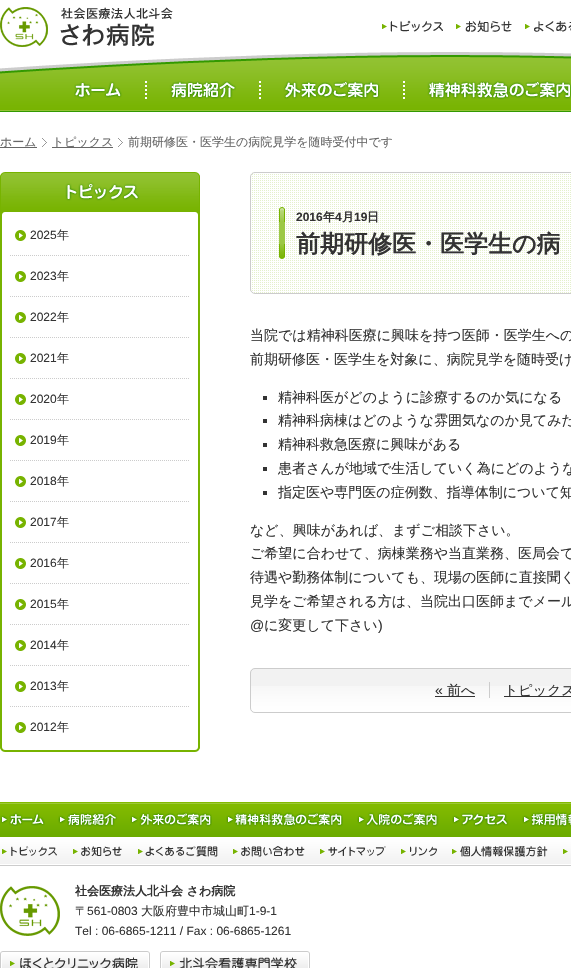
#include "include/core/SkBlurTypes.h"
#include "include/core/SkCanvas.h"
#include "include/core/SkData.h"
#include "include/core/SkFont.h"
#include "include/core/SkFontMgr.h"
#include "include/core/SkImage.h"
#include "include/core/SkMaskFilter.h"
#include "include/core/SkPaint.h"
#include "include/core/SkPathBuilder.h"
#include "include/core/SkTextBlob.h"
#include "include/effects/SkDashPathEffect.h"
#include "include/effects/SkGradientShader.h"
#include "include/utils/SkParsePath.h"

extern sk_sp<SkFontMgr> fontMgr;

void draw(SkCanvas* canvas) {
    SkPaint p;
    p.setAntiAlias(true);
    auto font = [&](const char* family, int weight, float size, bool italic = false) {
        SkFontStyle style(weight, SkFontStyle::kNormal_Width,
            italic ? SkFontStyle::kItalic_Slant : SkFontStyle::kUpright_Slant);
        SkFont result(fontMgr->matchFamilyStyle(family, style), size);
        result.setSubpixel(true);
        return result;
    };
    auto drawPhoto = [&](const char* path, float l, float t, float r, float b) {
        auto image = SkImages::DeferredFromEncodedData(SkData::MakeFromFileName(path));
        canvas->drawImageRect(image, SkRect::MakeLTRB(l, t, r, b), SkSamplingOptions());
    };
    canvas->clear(0xFFFFFFFF);
    drawPhoto("media/1.png", 0, 77, 571, 112);
    drawPhoto("media/2.png", 0, 52, 571, 77);
    drawPhoto("media/3.png", 0, 7, 173, 47);
    drawPhoto("media/4.png", 382, 20, 443, 32);
    drawPhoto("media/5.png", 456, 20, 512, 32);
    drawPhoto("media/6.png", 525, 21, 571, 32);
    drawPhoto("media/7.png", 74, 81, 146, 99);
    drawPhoto("media/8.png", 146, 81, 260, 99);
    drawPhoto("media/9.png", 260, 80, 404, 99);
    drawPhoto("media/10.png", 404, 80, 571, 100);
    p.setColor(0xFF666666);
    canvas->drawRect(SkRect::MakeLTRB(0, 147, 37, 148), p);
    auto font1 = font("WenQuanYi Zen Hei", 500, 12);
    canvas->drawString("ホーム", 0, 146, font1, p);
    drawPhoto("media/11.png", 42, 138, 47, 147);
    canvas->drawRect(SkRect::MakeLTRB(52, 147, 113, 148), p);
    canvas->drawString("トピックス", 52, 146, font1, p);
    drawPhoto("media/11.png", 118, 138, 123, 147);
    canvas->drawString("前期研修医・医学生の病院見学を随時受付中です", 128, 146, font1, p);
    drawPhoto("media/12.png", 0, 215, 200, 747);
    drawPhoto("media/13.png", 0, 747, 200, 752);
    drawPhoto("media/14.png", 0, 172, 200, 215);
    p.setStyle(SkPaint::kStroke_Style);
    p.setStrokeWidth(1);
    p.setColor(0xFFCCCCCC);
    p.setPathEffect(SkDashPathEffect::Make({{1, 1}}, 0));
    canvas->drawPath(SkPathBuilder().moveTo(10, 255.5f).lineTo(190, 255.5f).detach(), p);
    p.setPathEffect(nullptr);
    drawPhoto("media/15.png", 15, 230, 26, 241);
    auto font2 = font("Liberation Sans", 400, 12);
    p.setStyle(SkPaint::kFill_Style);
    p.setColor(0xFF333333);
    canvas->drawString("2025", 30, 239, font2, p);
    canvas->drawString("年", 57, 239, font1, p);
    p.setStyle(SkPaint::kStroke_Style);
    p.setColor(0xFFCCCCCC);
    p.setPathEffect(SkDashPathEffect::Make({{1, 1}}, 0));
    canvas->drawPath(SkPathBuilder().moveTo(10, 296.5f).lineTo(190, 296.5f).detach(), p);
    p.setPathEffect(nullptr);
    drawPhoto("media/15.png", 15, 271, 26, 282);
    p.setStyle(SkPaint::kFill_Style);
    p.setColor(0xFF333333);
    canvas->drawString("2023", 30, 280, font2, p);
    canvas->drawString("年", 57, 280, font1, p);
    p.setStyle(SkPaint::kStroke_Style);
    p.setColor(0xFFCCCCCC);
    p.setPathEffect(SkDashPathEffect::Make({{1, 1}}, 0));
    canvas->drawPath(SkPathBuilder().moveTo(10, 337.5f).lineTo(190, 337.5f).detach(), p);
    p.setPathEffect(nullptr);
    drawPhoto("media/15.png", 15, 312, 26, 323);
    p.setStyle(SkPaint::kFill_Style);
    p.setColor(0xFF333333);
    canvas->drawString("2022", 30, 321, font2, p);
    canvas->drawString("年", 57, 321, font1, p);
    p.setStyle(SkPaint::kStroke_Style);
    p.setColor(0xFFCCCCCC);
    p.setPathEffect(SkDashPathEffect::Make({{1, 1}}, 0));
    canvas->drawPath(SkPathBuilder().moveTo(10, 378.5f).lineTo(190, 378.5f).detach(), p);
    p.setPathEffect(nullptr);
    drawPhoto("media/15.png", 15, 353, 26, 364);
    p.setStyle(SkPaint::kFill_Style);
    p.setColor(0xFF333333);
    canvas->drawString("2021", 30, 362, font2, p);
    canvas->drawString("年", 57, 362, font1, p);
    p.setStyle(SkPaint::kStroke_Style);
    p.setColor(0xFFCCCCCC);
    p.setPathEffect(SkDashPathEffect::Make({{1, 1}}, 0));
    canvas->drawPath(SkPathBuilder().moveTo(10, 419.5f).lineTo(190, 419.5f).detach(), p);
    p.setPathEffect(nullptr);
    drawPhoto("media/15.png", 15, 394, 26, 405);
    p.setStyle(SkPaint::kFill_Style);
    p.setColor(0xFF333333);
    canvas->drawString("2020", 30, 403, font2, p);
    canvas->drawString("年", 57, 403, font1, p);
    p.setStyle(SkPaint::kStroke_Style);
    p.setColor(0xFFCCCCCC);
    p.setPathEffect(SkDashPathEffect::Make({{1, 1}}, 0));
    canvas->drawPath(SkPathBuilder().moveTo(10, 460.5f).lineTo(190, 460.5f).detach(), p);
    p.setPathEffect(nullptr);
    drawPhoto("media/15.png", 15, 435, 26, 446);
    p.setStyle(SkPaint::kFill_Style);
    p.setColor(0xFF333333);
    canvas->drawString("2019", 30, 444, font2, p);
    canvas->drawString("年", 57, 444, font1, p);
    p.setStyle(SkPaint::kStroke_Style);
    p.setColor(0xFFCCCCCC);
    p.setPathEffect(SkDashPathEffect::Make({{1, 1}}, 0));
    canvas->drawPath(SkPathBuilder().moveTo(10, 501.5f).lineTo(190, 501.5f).detach(), p);
    p.setPathEffect(nullptr);
    drawPhoto("media/15.png", 15, 476, 26, 487);
    p.setStyle(SkPaint::kFill_Style);
    p.setColor(0xFF333333);
    canvas->drawString("2018", 30, 485, font2, p);
    canvas->drawString("年", 57, 485, font1, p);
    p.setStyle(SkPaint::kStroke_Style);
    p.setColor(0xFFCCCCCC);
    p.setPathEffect(SkDashPathEffect::Make({{1, 1}}, 0));
    canvas->drawPath(SkPathBuilder().moveTo(10, 542.5f).lineTo(190, 542.5f).detach(), p);
    p.setPathEffect(nullptr);
    drawPhoto("media/15.png", 15, 517, 26, 528);
    p.setStyle(SkPaint::kFill_Style);
    p.setColor(0xFF333333);
    canvas->drawString("2017", 30, 526, font2, p);
    canvas->drawString("年", 57, 526, font1, p);
    p.setStyle(SkPaint::kStroke_Style);
    p.setColor(0xFFCCCCCC);
    p.setPathEffect(SkDashPathEffect::Make({{1, 1}}, 0));
    canvas->drawPath(SkPathBuilder().moveTo(10, 583.5f).lineTo(190, 583.5f).detach(), p);
    p.setPathEffect(nullptr);
    drawPhoto("media/15.png", 15, 558, 26, 569);
    p.setStyle(SkPaint::kFill_Style);
    p.setColor(0xFF333333);
    canvas->drawString("2016", 30, 567, font2, p);
    canvas->drawString("年", 57, 567, font1, p);
    p.setStyle(SkPaint::kStroke_Style);
    p.setColor(0xFFCCCCCC);
    p.setPathEffect(SkDashPathEffect::Make({{1, 1}}, 0));
    canvas->drawPath(SkPathBuilder().moveTo(10, 624.5f).lineTo(190, 624.5f).detach(), p);
    p.setPathEffect(nullptr);
    drawPhoto("media/15.png", 15, 599, 26, 610);
    p.setStyle(SkPaint::kFill_Style);
    p.setColor(0xFF333333);
    canvas->drawString("2015", 30, 608, font2, p);
    canvas->drawString("年", 57, 608, font1, p);
    p.setStyle(SkPaint::kStroke_Style);
    p.setColor(0xFFCCCCCC);
    p.setPathEffect(SkDashPathEffect::Make({{1, 1}}, 0));
    canvas->drawPath(SkPathBuilder().moveTo(10, 665.5f).lineTo(190, 665.5f).detach(), p);
    p.setPathEffect(nullptr);
    drawPhoto("media/15.png", 15, 640, 26, 651);
    p.setStyle(SkPaint::kFill_Style);
    p.setColor(0xFF333333);
    canvas->drawString("2014", 30, 649, font2, p);
    canvas->drawString("年", 57, 649, font1, p);
    p.setStyle(SkPaint::kStroke_Style);
    p.setColor(0xFFCCCCCC);
    p.setPathEffect(SkDashPathEffect::Make({{1, 1}}, 0));
    canvas->drawPath(SkPathBuilder().moveTo(10, 706.5f).lineTo(190, 706.5f).detach(), p);
    p.setPathEffect(nullptr);
    drawPhoto("media/15.png", 15, 681, 26, 692);
    p.setStyle(SkPaint::kFill_Style);
    p.setColor(0xFF333333);
    canvas->drawString("2013", 30, 690, font2, p);
    canvas->drawString("年", 57, 690, font1, p);
    drawPhoto("media/15.png", 15, 722, 26, 733);
    canvas->drawString("2012", 30, 731, font2, p);
    canvas->drawString("年", 57, 731, font1, p);
    drawPhoto("media/16.png", 250, 172, 571, 293);
    p.setStyle(SkPaint::kStroke_Style);
    p.setColor(0xFFCCCCCC);
    canvas->drawRoundRect(SkRect::MakeLTRB(250.5f, 172.5f, 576.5f, 293.5f), 4.5f, 4.5f, p);
    p.setStyle(SkPaint::kFill_Style);
    p.setColor(0xFF9CC846);
    canvas->drawRect(SkRect::MakeLTRB(279, 222, 285, 244), p);
    drawPhoto("media/17.png", 279, 207, 285, 222);
    drawPhoto("media/18.png", 279, 244, 285, 259);
    auto font3 = font("Liberation Sans", 700, 12);
    p.setColor(0xFF333333);
    canvas->drawString("2016", 296, 221, font3, p);
    auto font4 = font("WenQuanYi Zen Hei", 700, 12);
    canvas->drawString("年", 323, 221, font4, p);
    canvas->drawString("4", 335, 221, font3, p);
    canvas->drawString("月", 342, 221, font4, p);
    canvas->drawString("19", 354, 221, font3, p);
    canvas->drawString("日", 367, 221, font4, p);
    auto font5 = font("WenQuanYi Zen Hei", 700, 24);
    canvas->drawString("前期研修医・医学生の病", 296, 252, font5, p);
    auto font6 = font("WenQuanYi Zen Hei", 500, 14);
    canvas->drawString("当院では精神科医療に興味を持つ医師・医学生への", 250, 340, font6, p);
    canvas->drawString("前期研修医・医学生を対象に、病院見学を随時受け", 250, 364, font6, p);
    canvas->drawRect(SkRect::MakeLTRB(263, 396, 267, 400), p);
    canvas->drawString("精神科医がどのように診療するのか気になる", 278, 402, font6, p);
    canvas->drawRect(SkRect::MakeLTRB(263, 419, 267, 423), p);
    canvas->drawString("精神科病棟はどのような雰囲気なのか見てみた", 278, 425, font6, p);
    canvas->drawRect(SkRect::MakeLTRB(263, 443, 267, 447), p);
    canvas->drawString("精神科救急医療に興味がある", 278, 449, font6, p);
    canvas->drawRect(SkRect::MakeLTRB(263, 467, 267, 471), p);
    canvas->drawString("患者さんが地域で生活していく為にどのような", 278, 473, font6, p);
    canvas->drawRect(SkRect::MakeLTRB(263, 491, 267, 495), p);
    {
        const struct { const char* s; float x, y; } items[] = {
            {"指定医や専門医の症例数、指導体制について知", 278, 497},
            {"など、興味があれば、まずご相談下さい。", 250, 535},
            {"ご希望に合わせて、病棟業務や当直業務、医局会で", 250, 558},
            {"待遇や勤務体制についても、現場の医師に直接聞く", 250, 582},
            {"見学をご希望される方は、当院出口医師までメール", 250, 606},
        };
        for (auto [s, x, y] : items) {
            canvas->drawString(s, x, y, font6, p);
        }
    }
    auto font7 = font("Liberation Sans", 400, 14);
    canvas->drawString("@", 250, 630, font7, p);
    canvas->drawString("に変更して下さい", 264, 630, font6, p);
    canvas->drawString(")", 378, 630, font7, p);
    p.setColor(0xFFF2F2F2);
    canvas->drawRoundRect(SkRect::MakeLTRB(250, 668, 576, 713), 5, 5, p);
    drawPhoto("media/19.png", 250, 686, 571, 712);
    p.setStyle(SkPaint::kStroke_Style);
    p.setColor(0xFFCCCCCC);
    canvas->drawRoundRect(SkRect::MakeLTRB(250.5f, 668.5f, 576.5f, 712.5f), 4.5f, 4.5f, p);
    p.setStyle(SkPaint::kFill_Style);
    p.setColor(0xFF333333);
    canvas->drawString("«", 435, 695, font7, p);
    canvas->drawRect(SkRect::MakeLTRB(435, 696, 475, 697), p);
    canvas->drawString("前へ", 447, 695, font6, p);
    canvas->drawRect(SkRect::MakeLTRB(504, 696, 571, 697), p);
    canvas->drawString("トピックス", 504, 695, font6, p);
    p.setColor(0xFFCCCCCC);
    canvas->drawRect(SkRect::MakeLTRB(489, 682, 490, 698), p);
    drawPhoto("media/20.png", 0, 802, 571, 866);
    drawPhoto("media/21.png", 0, 812, 45, 826);
    drawPhoto("media/22.png", 58, 812, 117, 827);
    drawPhoto("media/23.png", 130, 812, 212, 827);
    drawPhoto("media/24.png", 226, 812, 343, 827);
    drawPhoto("media/25.png", 357, 812, 439, 827);
    drawPhoto("media/26.png", 452, 813, 509, 827);
    drawPhoto("media/27.png", 522, 812, 571, 827);
    drawPhoto("media/28.png", 2, 846, 57, 856);
    drawPhoto("media/29.png", 73, 846, 122, 856);
    drawPhoto("media/30.png", 138, 846, 218, 857);
    drawPhoto("media/31.png", 233, 846, 305, 857);
    drawPhoto("media/32.png", 320, 846, 386, 856);
    drawPhoto("media/33.png", 401, 846, 437, 856);
    drawPhoto("media/34.png", 452, 846, 548, 857);
    drawPhoto("media/35.png", 563, 849, 568, 854);
    drawPhoto("media/36.png", 0, 886, 60, 936);
    p.setColor(0xFF333333);
    canvas->drawString("社会医療法人北斗会 さわ病院", 75, 895, font4, p);
    canvas->drawString("〒", 75, 915, font1, p);
    canvas->drawString("561-0803", 87, 915, font2, p);
    canvas->drawString("大阪府豊中市城山町", 141, 915, font1, p);
    canvas->drawString("1-9-1", 249, 915, font2, p);
    canvas->drawString("Tel : 06-6865-1211 / Fax : 06-6865-1261", 75, 935, font2, p);
    drawPhoto("media/37.png", 0, 951, 150, 968);
    drawPhoto("media/38.png", 160, 951, 310, 968);
}
